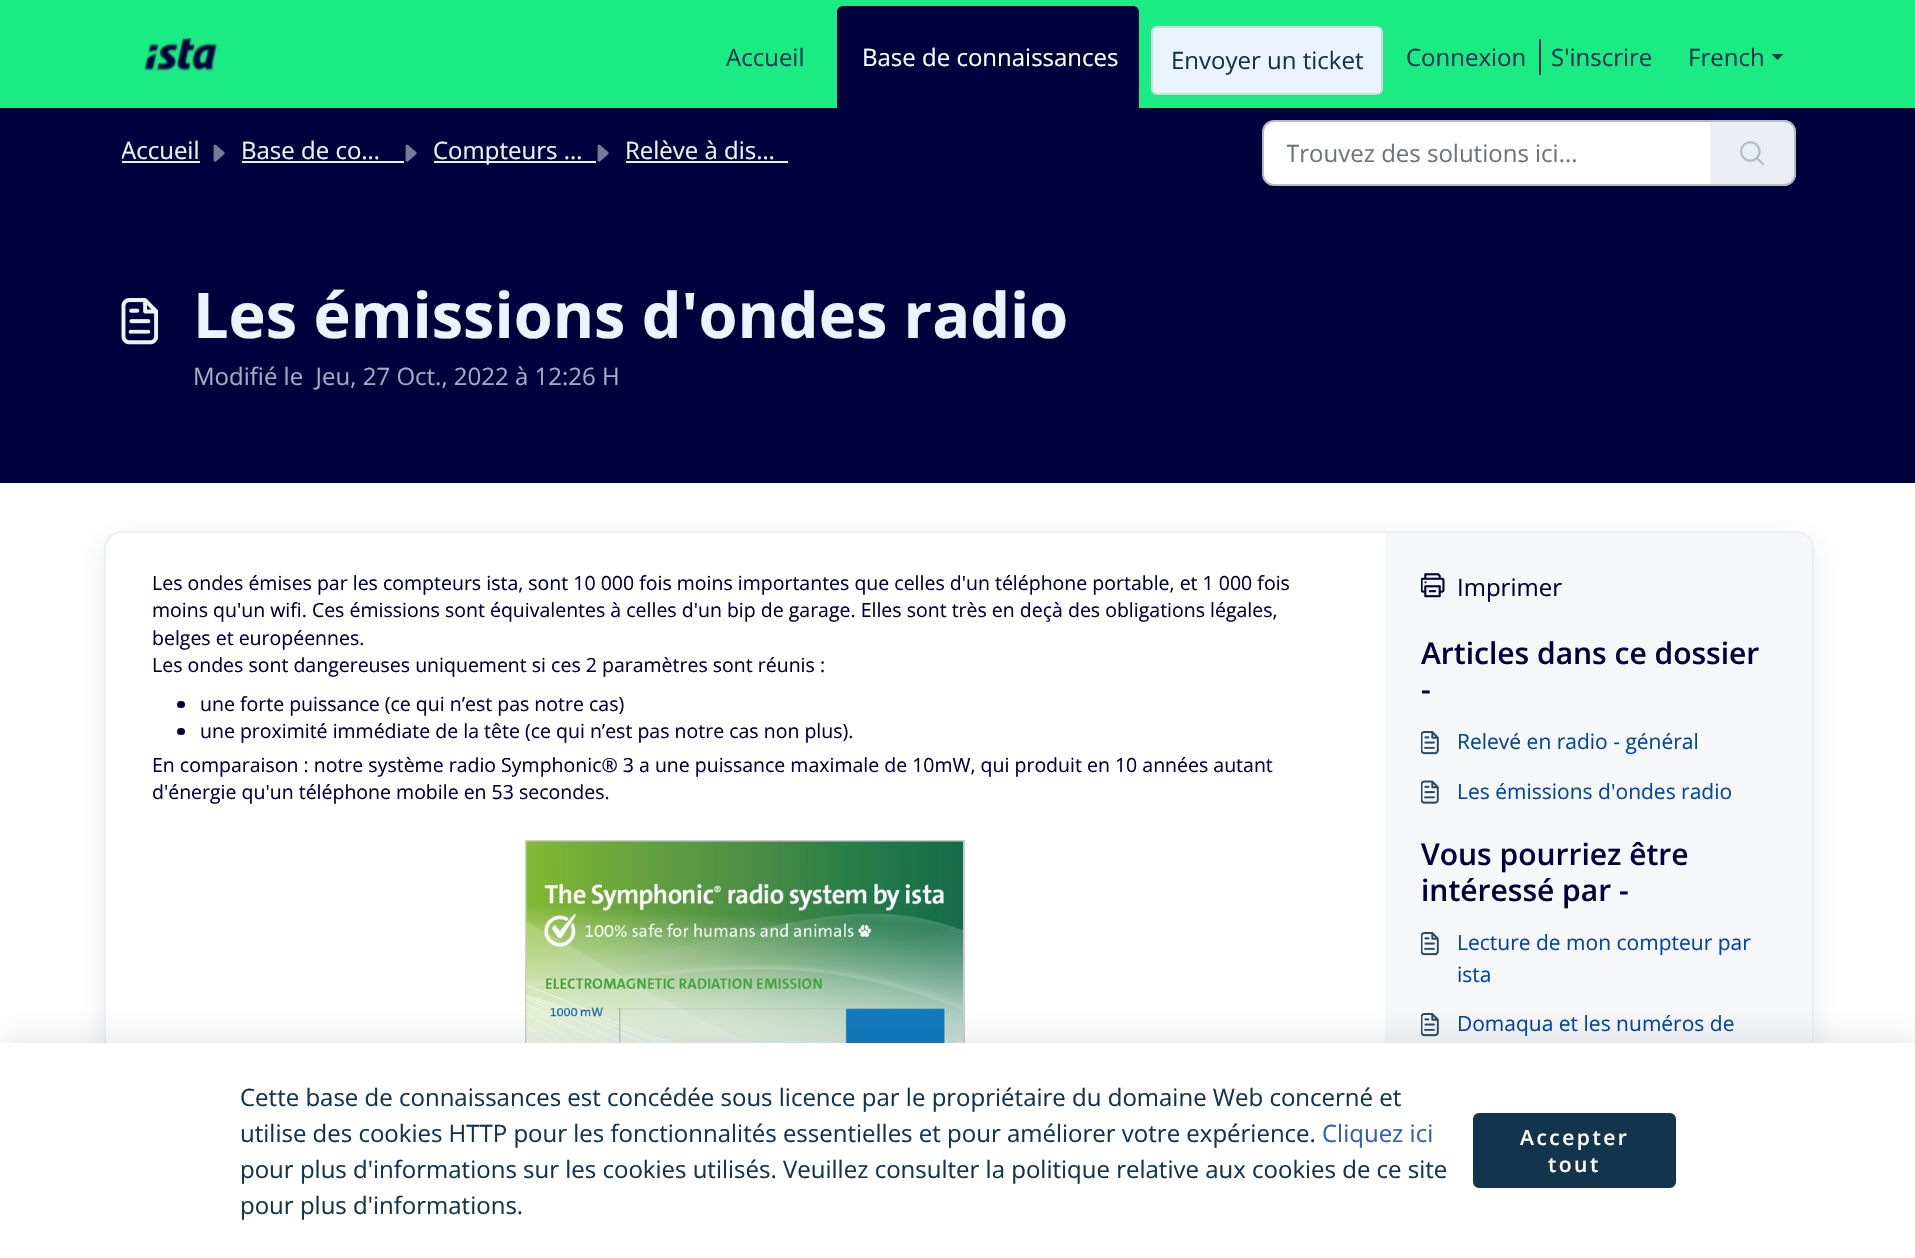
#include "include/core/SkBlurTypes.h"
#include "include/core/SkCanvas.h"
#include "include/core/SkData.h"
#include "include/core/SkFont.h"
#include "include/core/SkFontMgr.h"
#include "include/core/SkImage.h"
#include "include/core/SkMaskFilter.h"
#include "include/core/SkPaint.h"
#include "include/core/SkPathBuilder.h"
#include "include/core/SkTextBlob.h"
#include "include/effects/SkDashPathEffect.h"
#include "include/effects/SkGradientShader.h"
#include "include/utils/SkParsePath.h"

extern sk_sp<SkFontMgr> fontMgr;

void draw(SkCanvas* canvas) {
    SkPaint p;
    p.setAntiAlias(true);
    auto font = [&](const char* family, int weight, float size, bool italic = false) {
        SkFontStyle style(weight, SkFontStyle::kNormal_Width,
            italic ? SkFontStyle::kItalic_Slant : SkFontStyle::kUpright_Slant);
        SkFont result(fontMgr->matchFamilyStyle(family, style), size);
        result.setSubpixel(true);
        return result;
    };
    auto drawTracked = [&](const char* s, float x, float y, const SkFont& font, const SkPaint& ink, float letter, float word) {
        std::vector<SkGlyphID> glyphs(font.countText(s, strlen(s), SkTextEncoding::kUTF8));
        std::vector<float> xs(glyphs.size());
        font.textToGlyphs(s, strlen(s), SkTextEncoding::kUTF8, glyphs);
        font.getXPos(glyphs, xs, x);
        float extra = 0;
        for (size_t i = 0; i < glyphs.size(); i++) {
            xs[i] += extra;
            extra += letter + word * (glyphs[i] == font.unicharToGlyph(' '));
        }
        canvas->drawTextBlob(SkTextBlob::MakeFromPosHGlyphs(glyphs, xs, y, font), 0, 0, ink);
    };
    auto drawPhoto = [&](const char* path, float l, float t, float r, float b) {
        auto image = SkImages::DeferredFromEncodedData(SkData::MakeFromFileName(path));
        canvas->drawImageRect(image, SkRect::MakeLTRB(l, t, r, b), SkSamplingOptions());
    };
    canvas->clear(0xFFFFFFFF);
    p.setColor(0xFF1BEB83);
    canvas->drawRect(SkRect::MakeLTRB(0, 0, 1915, 108), p);
    drawPhoto("media/1.png", 144, 38, 218, 72);
    auto font1 = font("Open Sans", 400, 24);
    p.setColor(0xFF12344D);
    canvas->drawString("Accueil", 726, 66, font1, p);
    p.setColor(0xFF00003C);
    canvas->drawPath(SkPathBuilder().moveTo(843, 6).lineTo(1133, 6).cubicTo(1136.5f, 6, 1139, 8.5f, 1139, 12).lineTo(1139, 108).lineTo(837, 108).lineTo(837, 12).cubicTo(837, 8.5f, 839.5f, 6, 843, 6).close().detach(), p);
    p.setColor(0xFFFFFFFF);
    canvas->drawString("Base de connaissances", 862, 66, font1, p);
    p.setColor(0xFFEBF4FE);
    canvas->drawRoundRect(SkRect::MakeLTRB(1152, 27, 1382, 94), 5, 5, p);
    p.setStyle(SkPaint::kStroke_Style);
    p.setStrokeWidth(2);
    p.setColor(0xFFCFD7DF);
    canvas->drawRoundRect(SkRect::MakeLTRB(1152, 27, 1382, 94), 5, 5, p);
    p.setStyle(SkPaint::kFill_Style);
    p.setColor(0xFF12344D);
    canvas->drawString("Envoyer un ticket", 1171, 69, font1, p);
    canvas->drawString("Connexion", 1406, 66, font1, p);
    canvas->drawRect(SkRect::MakeLTRB(1539, 39, 1541, 75), p);
    canvas->drawString("S'inscrire", 1551, 66, font1, p);
    canvas->drawString("French", 1688, 66, font1, p);
    canvas->drawPath(SkPathBuilder().moveTo(1771.5f, 54).lineTo(1783.5f, 54).lineTo(1777.5f, 60).close().detach(), p);
    p.setColor(0xFF00003C);
    canvas->drawRect(SkRect::MakeLTRB(0, 108, 1915, 483), p);
    canvas->save();
    canvas->clipRect(SkRect::MakeLTRB(122, 132, 212, 174));
    p.setColor(0xFFEBF4FE);
    canvas->drawString("Accueil", 121, 159, font1, p);
    canvas->restore();
    canvas->drawRect(SkRect::MakeLTRB(122, 161, 200, 163), p);
    drawPhoto("media/2.png", 213, 144, 225, 162);
    canvas->drawString("Base de co…", 241, 159, font1, p);
    canvas->drawRect(SkRect::MakeLTRB(242, 161, 404, 163), p);
    drawPhoto("media/2.png", 405, 144, 417, 162);
    canvas->drawRect(SkRect::MakeLTRB(434, 161, 596, 163), p);
    canvas->drawString("Compteurs …", 433, 159, font1, p);
    drawPhoto("media/2.png", 597, 144, 609, 162);
    canvas->drawString("Relève à dis…", 625, 159, font1, p);
    canvas->drawRect(SkRect::MakeLTRB(626, 161, 788, 163), p);
    p.setColor(0xFFFFFFFF);
    canvas->drawPath(SkPathBuilder().moveTo(1274, 121).lineTo(1711, 121).lineTo(1711, 185).lineTo(1274, 185).cubicTo(1268, 185, 1263, 180, 1263, 174).lineTo(1263, 132).cubicTo(1263, 126, 1268, 121, 1274, 121).close().detach(), p);
    p.setStyle(SkPaint::kStroke_Style);
    p.setColor(0xFFB1BDC8);
    canvas->drawPath(SkPathBuilder().moveTo(1274, 121).lineTo(1711, 121).lineTo(1711, 185).lineTo(1274, 185).cubicTo(1268, 185, 1263, 180, 1263, 174).lineTo(1263, 132).cubicTo(1263, 126, 1268, 121, 1274, 121).close().detach(), p);
    canvas->save();
    canvas->clipRect(SkRect::MakeLTRB(1287, 137, 1686, 170));
    p.setStyle(SkPaint::kFill_Style);
    p.setColor(0xFF6C757D);
    canvas->drawString("Trouvez des solutions ici...", 1286, 162, font1, p);
    canvas->restore();
    p.setColor(0xFFEBEFF3);
    canvas->drawPath(SkPathBuilder().moveTo(1710, 120).lineTo(1784, 120).cubicTo(1790.5f, 120, 1796, 125.5f, 1796, 132).lineTo(1796, 174).cubicTo(1796, 180.5f, 1790.5f, 186, 1784, 186).lineTo(1710, 186).close().detach(), p);
    p.setColor(0xFFB1BDC8);
    canvas->drawPath(SkPathBuilder(SkPathFillType::kEvenOdd).moveTo(1710, 120).lineTo(1784, 120).cubicTo(1790, 120, 1796, 125, 1796, 132).lineTo(1796, 174).cubicTo(1796, 181, 1790, 186, 1784, 186).lineTo(1710, 186).close().moveTo(1710, 122).lineTo(1784, 122).cubicTo(1789, 122, 1794, 126, 1794, 132).lineTo(1794, 174).cubicTo(1794, 180, 1789, 184, 1784, 184).lineTo(1710, 184).close().detach(), p);
    drawPhoto("media/3.png", 1740, 141, 1764, 166);
    drawPhoto("media/4.png", 121, 298, 159, 345);
    auto font2 = font("Open Sans", 700, 63);
    p.setColor(0xFFEBF4FE);
    canvas->drawString("Les émissions d'ondes radio", 193, 338, font2, p);
    p.setColor(0xFFA5ABC4);
    canvas->drawString("Modifié le  Jeu, 27 Oct., 2022 à 12:26 H", 193, 385, font1, p);
    p.setColor(0x1A27313A);
    p.setMaskFilter(SkMaskFilter::MakeBlur(kNormal_SkBlurStyle, 14));
    canvas->drawRoundRect(SkRect::MakeLTRB(104, 540, 1814, 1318), 18, 18, p);
    p.setMaskFilter(nullptr);
    p.setColor(0xFFFFFFFF);
    canvas->drawRoundRect(SkRect::MakeLTRB(105, 532, 1813, 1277), 17, 17, p);
    p.setStyle(SkPaint::kStroke_Style);
    p.setColor(0xFFEBEFF3);
    canvas->drawRoundRect(SkRect::MakeLTRB(105, 532, 1813, 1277), 17, 17, p);
    auto font3 = font("Open Sans", 400, 19.5f);
    p.setStyle(SkPaint::kFill_Style);
    p.setColor(0xFF00003C);
    {
        const struct { const char* s; float x, y; } items[] = {
            {"Les ondes émises par les compteurs ista, sont 10 000 fois moins importantes que celles d'un téléphone portable, et 1 000 fois", 152, 590},
            {"moins qu'un wifi. Ces émissions sont équivalentes à celles d'un bip de garage. Elles sont très en deçà des obligations légales,", 152, 617},
            {"belges et européennes.", 152, 645},
            {"Les ondes sont dangereuses uniquement si ces 2 paramètres sont réunis :", 152, 672},
        };
        for (auto [s, x, y] : items) {
            canvas->drawString(s, x, y, font3, p);
        }
    }
    canvas->drawRoundRect(SkRect::MakeLTRB(177, 701, 185, 708), 3.5f, 3.5f, p);
    canvas->drawString("une forte puissance (ce qui n’est pas notre cas)", 200, 711, font3, p);
    canvas->drawRoundRect(SkRect::MakeLTRB(177, 728, 185, 735), 3.5f, 3.5f, p);
    {
        const struct { const char* s; float x, y; } items[] = {
            {"une proximité immédiate de la tête (ce qui n’est pas notre cas non plus).", 200, 738},
            {"En comparaison : notre système radio Symphonic® 3 a une puissance maximale de 10mW, qui produit en 10 années autant", 152, 772},
            {"d'énergie qu'un téléphone mobile en 53 secondes.", 152, 799},
        };
        for (auto [s, x, y] : items) {
            canvas->drawString(s, x, y, font3, p);
        }
    }
    p.setStyle(SkPaint::kStroke_Style);
    p.setColor(0xFFCCCCCC);
    canvas->drawRect(SkRect::MakeLTRB(526, 841, 964, 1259), p);
    drawPhoto("media/5.png", 526, 841, 963, 1043);
    p.setStyle(SkPaint::kFill_Style);
    p.setColor(0xFFF5F7F9);
    canvas->drawPath(SkPathBuilder().moveTo(1385, 533).lineTo(1794, 533).cubicTo(1804, 533, 1812, 541, 1812, 551).lineTo(1812, 1258).cubicTo(1812, 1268, 1804, 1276, 1794, 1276).lineTo(1385, 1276).close().detach(), p);
    drawPhoto("media/6.png", 1421, 573, 1445, 598);
    p.setColor(0xFF00003C);
    canvas->drawString("Imprimer", 1457, 596, font1, p);
    auto font4 = font("Open Sans", 600, 30);
    canvas->drawString("Articles dans ce dossier", 1421, 664, font4, p);
    canvas->drawString("-", 1421, 700, font4, p);
    drawPhoto("media/7.png", 1421, 731, 1439, 755);
    auto font5 = font("Open Sans", 400, 21);
    p.setColor(0xFF0047A1);
    canvas->drawString("Relevé en radio - général", 1457, 749, font5, p);
    drawPhoto("media/8.png", 1421, 780, 1439, 804);
    canvas->drawString("Les émissions d'ondes radio", 1457, 799, font5, p);
    p.setColor(0xFF00003C);
    canvas->drawString("Vous pourriez être", 1421, 865, font4, p);
    canvas->drawString("intéressé par -", 1421, 901, font4, p);
    drawPhoto("media/7.png", 1421, 932, 1439, 956);
    p.setColor(0xFF0047A1);
    canvas->drawString("Lecture de mon compteur par", 1457, 950, font5, p);
    canvas->drawString("ista", 1457, 982, font5, p);
    drawPhoto("media/7.png", 1421, 1013, 1439, 1037);
    canvas->drawString("Domaqua et les numéros de", 1457, 1031, font5, p);
    p.setColor(0x1A27313A);
    p.setMaskFilter(SkMaskFilter::MakeBlur(kNormal_SkBlurStyle, 14));
    canvas->drawRect(SkRect::MakeLTRB(0, 1035, 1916, 1251), p);
    p.setMaskFilter(nullptr);
    p.setColor(0xFFFFFFFF);
    canvas->drawRect(SkRect::MakeLTRB(0, 1043, 1915, 1258), p);
    p.setColor(0xFF12344D);
    canvas->drawString("Cette base de connaissances est concédée sous licence par le propriétaire du domaine Web concerné et", 240, 1106, font1, p);
    canvas->drawString("utilise des cookies HTTP pour les fonctionnalités essentielles et pour améliorer votre expérience.", 240, 1142, font1, p);
    p.setColor(0xFF2C5CC5);
    canvas->drawString("Cliquez ici", 1322, 1142, font1, p);
    p.setColor(0xFF12344D);
    canvas->drawString("pour plus d'informations sur les cookies utilisés. Veuillez consulter la politique relative aux cookies de ce site", 240, 1178, font1, p);
    canvas->drawString("pour plus d'informations.", 240, 1214, font1, p);
    canvas->drawRoundRect(SkRect::MakeLTRB(1474, 1114, 1675, 1187), 5, 5, p);
    p.setStyle(SkPaint::kStroke_Style);
    canvas->drawRoundRect(SkRect::MakeLTRB(1474, 1114, 1675, 1187), 5, 5, p);
    auto font6 = font("Open Sans", 600, 21);
    p.setStyle(SkPaint::kFill_Style);
    p.setColor(0xFFFFFFFF);
    drawTracked("Accepter", 1520, 1145, font6, p, 2.5f, 0);
    drawTracked("tout", 1548, 1172, font6, p, 2.5f, 0);
}
